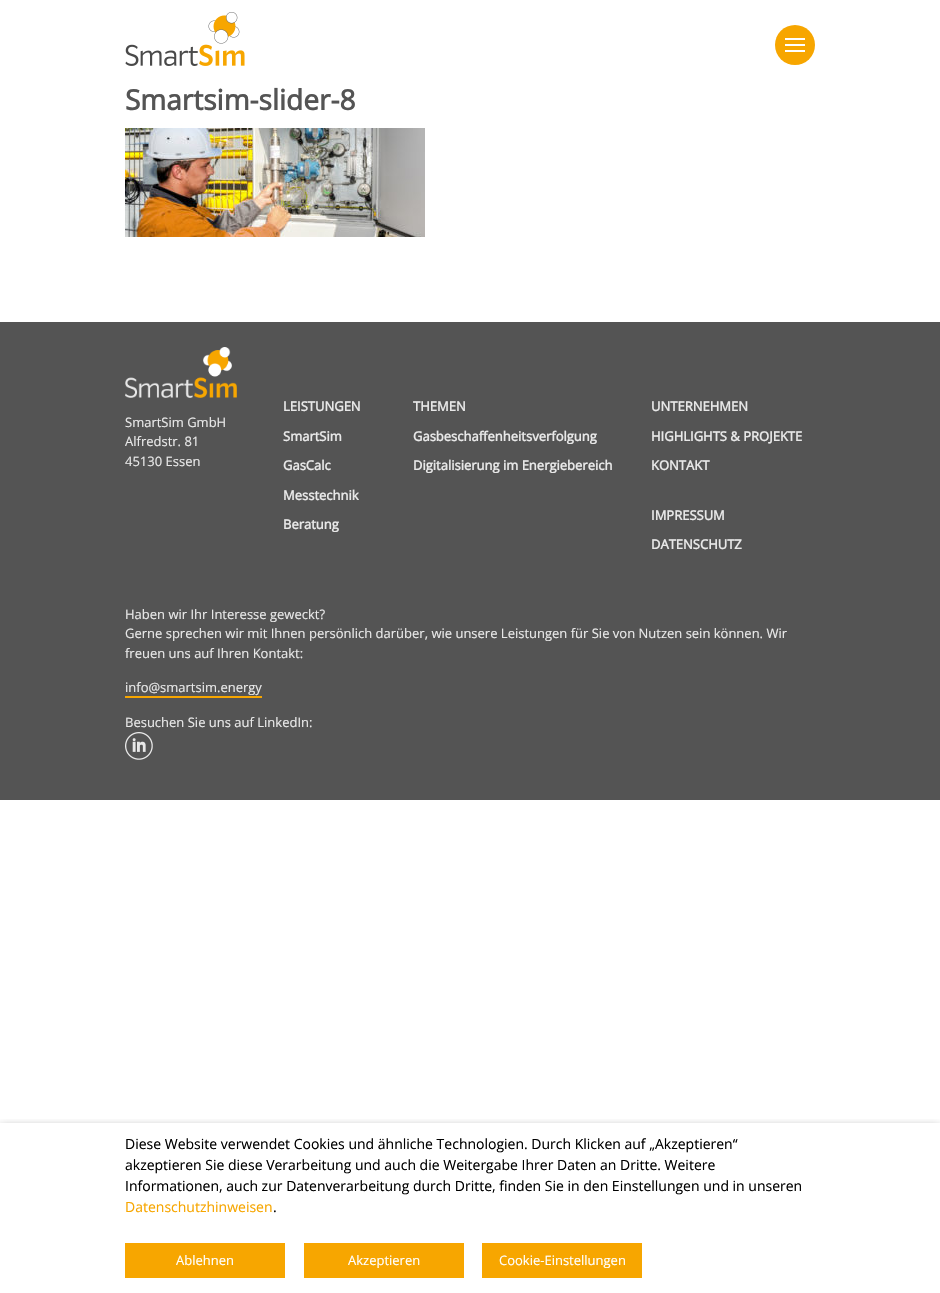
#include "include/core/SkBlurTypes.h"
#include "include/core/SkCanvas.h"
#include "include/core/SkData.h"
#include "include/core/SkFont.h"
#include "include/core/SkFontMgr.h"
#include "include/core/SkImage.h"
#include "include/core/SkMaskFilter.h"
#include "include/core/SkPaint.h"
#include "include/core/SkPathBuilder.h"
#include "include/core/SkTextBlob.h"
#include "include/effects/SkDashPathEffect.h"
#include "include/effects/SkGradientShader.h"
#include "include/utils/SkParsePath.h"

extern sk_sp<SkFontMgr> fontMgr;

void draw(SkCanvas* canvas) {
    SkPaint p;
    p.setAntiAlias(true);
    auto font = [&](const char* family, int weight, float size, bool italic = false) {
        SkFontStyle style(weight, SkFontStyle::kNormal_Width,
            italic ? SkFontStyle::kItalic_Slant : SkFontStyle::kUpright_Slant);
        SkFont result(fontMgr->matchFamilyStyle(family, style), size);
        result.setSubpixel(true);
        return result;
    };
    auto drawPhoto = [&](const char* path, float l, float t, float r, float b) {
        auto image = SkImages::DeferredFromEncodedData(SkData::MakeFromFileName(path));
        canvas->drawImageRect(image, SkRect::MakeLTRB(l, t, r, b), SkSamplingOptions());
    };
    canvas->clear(0xFFFFFFFF);
    drawPhoto("media/1.png", 125, 12, 245, 66);
    p.setColor(0xFFF7A600);
    canvas->drawCircle(795, 45, 20, p);
    {
        const struct { float l, t, r, b; SkColor color; } items[] = {
            {785, 38, 805, 40, 0xFFFFFFFF},
            {785, 44, 805, 46, 0xFFFFFFFF},
            {785, 50, 805, 52, 0xFFFFFFFF},
        };
        for (auto [l, t, r, b, color] : items) {
            p.setColor(color);
            canvas->drawRect(SkRect::MakeLTRB(l, t, r, b), p);
        }
    }
    auto font1 = font("Open Sans", 700, 28);
    p.setColor(0xFF545454);
    canvas->drawString("Smartsim-slider-8", 125, 110, font1, p);
    drawPhoto("media/2.png", 125, 128, 425, 237);
    canvas->drawRect(SkRect::MakeLTRB(0, 322, 940, 800), p);
    drawPhoto("media/3.png", 125, 347, 237, 398);
    auto font2 = font("Open Sans", 400, 13);
    p.setColor(0xFFE8E8E8);
    {
        const struct { const char* s; float x, y; } items[] = {
            {"SmartSim GmbH", 125, 427},
            {"Alfredstr. 81", 125, 446},
            {"45130 Essen", 125, 466},
        };
        for (auto [s, x, y] : items) {
            canvas->drawString(s, x, y, font2, p);
        }
    }
    auto font3 = font("Open Sans", 700, 13);
    {
        const struct { const char* s; float x, y; } items[] = {
            {"LEISTUNGEN", 283, 411},
            {"SmartSim", 283, 441},
            {"GasCalc", 283, 470},
            {"Messtechnik", 283, 500},
            {"Beratung", 283, 529},
            {"THEMEN", 413, 411},
            {"Gasbeschaffenheitsverfolgung", 413, 441},
            {"Digitalisierung im Energiebereich", 413, 470},
            {"UNTERNEHMEN", 651, 411},
            {"HIGHLIGHTS & PROJEKTE", 651, 441},
            {"KONTAKT", 651, 470},
            {"IMPRESSUM", 651, 520},
            {"DATENSCHUTZ", 651, 549},
        };
        for (auto [s, x, y] : items) {
            canvas->drawString(s, x, y, font3, p);
        }
    }
    {
        const struct { const char* s; float x, y; } items[] = {
            {"Haben wir Ihr Interesse geweckt?", 125, 619},
            {"Gerne sprechen wir mit Ihnen persönlich darüber, wie unsere Leistungen für Sie von Nutzen sein können. Wir", 125, 638},
            {"freuen uns auf Ihren Kontakt:", 125, 658},
            {"info@smartsim.energy", 125, 692},
        };
        for (auto [s, x, y] : items) {
            canvas->drawString(s, x, y, font2, p);
        }
    }
    p.setColor(0xFFF7A600);
    canvas->drawRect(SkRect::MakeLTRB(125, 696, 262, 698), p);
    p.setColor(0xFFE8E8E8);
    canvas->drawString("Besuchen Sie uns auf LinkedIn:", 125, 727, font2, p);
    drawPhoto("media/4.png", 125, 732, 153, 760);
    canvas->save();
    canvas->clipRect(SkRect::MakeLTRB(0, 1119, 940, 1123));
    p.setColor(0x80000000);
    p.setMaskFilter(SkMaskFilter::MakeBlur(kNormal_SkBlurStyle, 5));
    canvas->drawRect(SkRect::MakeLTRB(0, 1128, 940, 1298), p);
    p.setMaskFilter(nullptr);
    canvas->restore();
    auto font4 = font("Open Sans", 400, 14);
    p.setColor(0xFF000000);
    {
        const struct { const char* s; float x, y; } items[] = {
            {"Diese Website verwendet Cookies und ähnliche Technologien. Durch Klicken auf „Akzeptieren“", 125, 1149},
            {"akzeptieren Sie diese Verarbeitung und auch die Weitergabe Ihrer Daten an Dritte. Weitere", 125, 1170},
            {"Informationen, auch zur Datenverarbeitung durch Dritte, finden Sie in den Einstellungen und in unseren", 125, 1191},
        };
        for (auto [s, x, y] : items) {
            canvas->drawString(s, x, y, font4, p);
        }
    }
    p.setColor(0xFFF7A600);
    canvas->drawString("Datenschutzhinweisen", 125, 1212, font4, p);
    p.setColor(0xFF000000);
    canvas->drawString(".", 273, 1212, font4, p);
    p.setColor(0xFFF7A600);
    canvas->drawRect(SkRect::MakeLTRB(125, 1243, 285, 1278), p);
    p.setColor(0xFFFFFFFF);
    canvas->drawString("Ablehnen", 176, 1265, font2, p);
    p.setColor(0xFFF7A600);
    canvas->drawRect(SkRect::MakeLTRB(304, 1243, 464, 1278), p);
    p.setColor(0xFFFFFFFF);
    canvas->drawString("Akzeptieren", 348, 1265, font2, p);
    p.setColor(0xFFF7A600);
    canvas->drawRect(SkRect::MakeLTRB(482, 1243, 642, 1278), p);
    p.setColor(0xFFFFFFFF);
    canvas->drawString("Cookie-Einstellungen", 499, 1265, font2, p);
}
